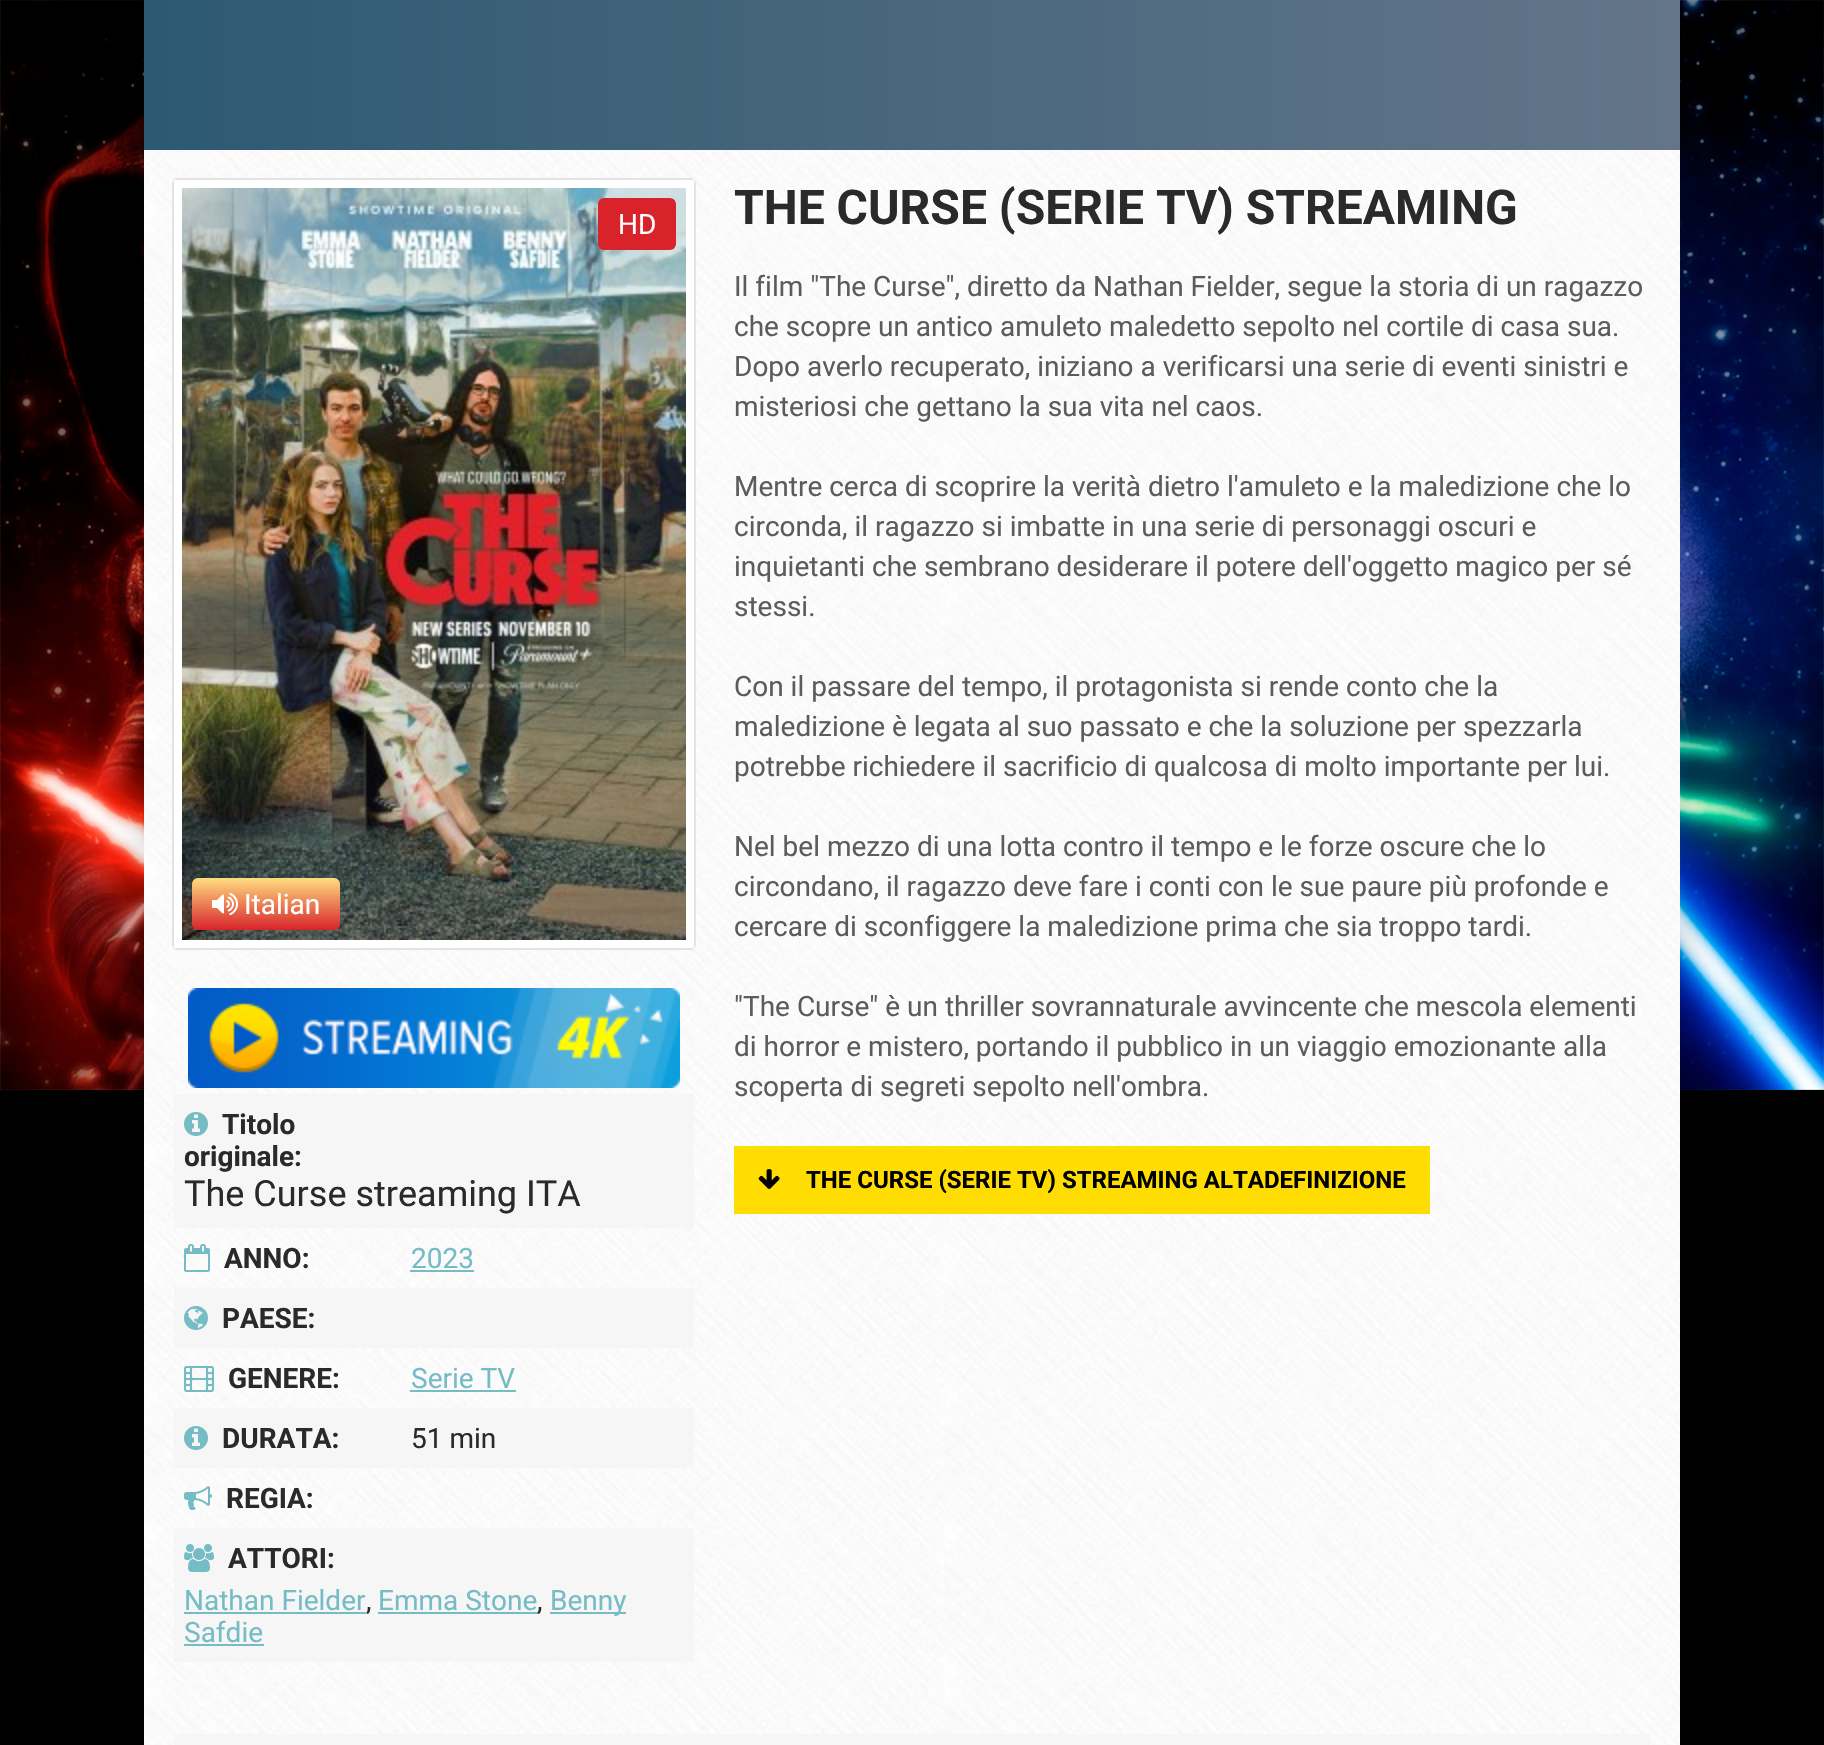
#include "include/core/SkBlurTypes.h"
#include "include/core/SkCanvas.h"
#include "include/core/SkData.h"
#include "include/core/SkFont.h"
#include "include/core/SkFontMgr.h"
#include "include/core/SkImage.h"
#include "include/core/SkMaskFilter.h"
#include "include/core/SkPaint.h"
#include "include/core/SkPathBuilder.h"
#include "include/core/SkTextBlob.h"
#include "include/effects/SkDashPathEffect.h"
#include "include/effects/SkGradientShader.h"
#include "include/utils/SkParsePath.h"

extern sk_sp<SkFontMgr> fontMgr;

void draw(SkCanvas* canvas) {
    SkPaint p;
    p.setAntiAlias(true);
    auto font = [&](const char* family, int weight, float size, bool italic = false) {
        SkFontStyle style(weight, SkFontStyle::kNormal_Width,
            italic ? SkFontStyle::kItalic_Slant : SkFontStyle::kUpright_Slant);
        SkFont result(fontMgr->matchFamilyStyle(family, style), size);
        result.setSubpixel(true);
        return result;
    };
    auto drawPhoto = [&](const char* path, float l, float t, float r, float b) {
        auto image = SkImages::DeferredFromEncodedData(SkData::MakeFromFileName(path));
        canvas->drawImageRect(image, SkRect::MakeLTRB(l, t, r, b), SkSamplingOptions());
    };
    canvas->clear(0xFF000000);
    drawPhoto("media/1.png", 0, 0, 1824, 1090);
    p.setColor(0x26000000);
    p.setMaskFilter(SkMaskFilter::MakeBlur(kNormal_SkBlurStyle, 20));
    canvas->drawRect(SkRect::MakeLTRB(144, -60, 1680, 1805), p);
    p.setMaskFilter(nullptr);
    drawPhoto("media/2.png", 144, 150, 1680, 1745);
    {
        const SkColor colors[] = {0xFF647589, 0xFF2D5972};
        const float stops[] = {0, 1};
        const SkPoint ends[] = {{1680, -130}, {144, -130}};
        p.setShader(SkGradientShader::MakeLinear(ends, colors, stops, 2, SkTileMode::kClamp));
        p.setAlpha(255);
    }
    canvas->drawRect(SkRect::MakeLTRB(144, 0, 1680, 150), p);
    p.setStyle(SkPaint::kStroke_Style);
    p.setStrokeWidth(2);
    p.setShader(nullptr);
    p.setColor(0xFFE3E3E3);
    canvas->drawRoundRect(SkRect::MakeLTRB(173, 179, 695, 949), 5, 5, p);
    p.setStrokeWidth(8);
    p.setColor(0xFFFFFFFF);
    canvas->drawRect(SkRect::MakeLTRB(178, 184, 690, 944), p);
    drawPhoto("media/3.png", 182, 188, 686, 940);
    p.setStyle(SkPaint::kFill_Style);
    p.setColor(0xFFD8232A);
    canvas->drawRoundRect(SkRect::MakeLTRB(598, 198, 676, 250), 6, 6, p);
    auto font1 = font("Roboto", 400, 28);
    p.setColor(0xFFFFFFFF);
    canvas->drawString("HD", 618, 234, font1, p);
    {
        const SkColor colors[] = {0xFFFFDD80, 0xFFD8232A};
        const float stops[] = {0, 1};
        const SkPoint ends[] = {{266, 878}, {266, 930}};
        p.setShader(SkGradientShader::MakeLinear(ends, colors, stops, 2, SkTileMode::kClamp));
        p.setAlpha(255);
    }
    canvas->drawRoundRect(SkRect::MakeLTRB(192, 878, 340, 930), 6, 6, p);
    drawPhoto("media/4.png", 212, 892, 238, 916);
    p.setShader(nullptr);
    p.setColor(0xFFFFFFFF);
    canvas->drawString("Italian", 244, 914, font1, p);
    drawPhoto("media/5.png", 188, 988, 680, 1088);
    p.setColor(0xFFF6F6F6);
    canvas->drawRect(SkRect::MakeLTRB(174, 1094, 694, 1228), p);
    drawPhoto("media/6.png", 184, 1112, 208, 1136);
    auto font2 = font("Roboto", 700, 28);
    p.setColor(0xFF2A2A2A);
    canvas->drawString("Titolo", 222, 1134, font2, p);
    canvas->drawString("originale:", 184, 1166, font2, p);
    auto font3 = font("Roboto", 400, 36);
    canvas->drawString("The Curse streaming ITA", 184, 1206, font3, p);
    drawPhoto("media/7.png", 184, 1244, 210, 1272);
    canvas->drawString("ANNO:", 224, 1268, font2, p);
    p.setColor(0xFF75BCC4);
    canvas->drawString("2023", 411, 1268, font1, p);
    canvas->drawRect(SkRect::MakeLTRB(410, 1270, 474, 1272), p);
    p.setColor(0xFFF6F6F6);
    canvas->drawRect(SkRect::MakeLTRB(174, 1288, 694, 1348), p);
    drawPhoto("media/8.png", 184, 1306, 208, 1330);
    p.setColor(0xFF2A2A2A);
    canvas->drawString("PAESE:", 222, 1328, font2, p);
    drawPhoto("media/9.png", 184, 1366, 214, 1392);
    canvas->drawString("GENERE:", 228, 1388, font2, p);
    p.setColor(0xFF75BCC4);
    canvas->drawString("Serie TV", 411, 1388, font1, p);
    canvas->drawRect(SkRect::MakeLTRB(410, 1390, 516, 1392), p);
    p.setColor(0xFFF6F6F6);
    canvas->drawRect(SkRect::MakeLTRB(174, 1408, 694, 1468), p);
    drawPhoto("media/6.png", 184, 1426, 208, 1450);
    p.setColor(0xFF2A2A2A);
    canvas->drawString("DURATA:", 222, 1448, font2, p);
    canvas->drawString("51 min", 411, 1448, font1, p);
    drawPhoto("media/10.png", 184, 1486, 212, 1510);
    canvas->drawString("REGIA:", 226, 1508, font2, p);
    p.setColor(0xFFF6F6F6);
    canvas->drawRect(SkRect::MakeLTRB(174, 1528, 694, 1662), p);
    drawPhoto("media/11.png", 184, 1544, 214, 1572);
    p.setColor(0xFF2A2A2A);
    canvas->drawString("ATTORI:", 228, 1568, font2, p);
    p.setColor(0xFF75BCC4);
    canvas->drawString("Nathan Fielder", 184, 1610, font1, p);
    canvas->drawRect(SkRect::MakeLTRB(184, 1612, 366, 1614), p);
    p.setColor(0xFF2A2A2A);
    canvas->drawString(",", 366, 1610, font1, p);
    p.setColor(0xFF75BCC4);
    canvas->drawString("Emma Stone", 378, 1610, font1, p);
    canvas->drawRect(SkRect::MakeLTRB(378, 1612, 538, 1614), p);
    p.setColor(0xFF2A2A2A);
    canvas->drawString(",", 537, 1610, font1, p);
    p.setColor(0xFF75BCC4);
    canvas->drawRect(SkRect::MakeLTRB(550, 1612, 626, 1614), p);
    canvas->drawString("Benny", 550, 1610, font1, p);
    canvas->drawString("Safdie", 184, 1642, font1, p);
    canvas->drawRect(SkRect::MakeLTRB(184, 1644, 264, 1646), p);
    auto font4 = font("Roboto", 700, 48);
    p.setColor(0xFF2A2A2A);
    canvas->drawString("THE CURSE (SERIE TV) STREAMING", 734, 224, font4, p);
    p.setColor(0xFF5C5C5C);
    {
        const struct { const char* s; float x, y; } items[] = {
            {"Il film \"The Curse\", diretto da Nathan Fielder, segue la storia di un ragazzo", 734, 296},
            {"che scopre un antico amuleto maledetto sepolto nel cortile di casa sua.", 734, 336},
            {"Dopo averlo recuperato, iniziano a verificarsi una serie di eventi sinistri e", 734, 376},
            {"misteriosi che gettano la sua vita nel caos.", 734, 416},
            {"Mentre cerca di scoprire la verità dietro l'amuleto e la maledizione che lo", 734, 496},
            {"circonda, il ragazzo si imbatte in una serie di personaggi oscuri e", 734, 536},
            {"inquietanti che sembrano desiderare il potere dell'oggetto magico per sé", 734, 576},
            {"stessi.", 734, 616},
            {"Con il passare del tempo, il protagonista si rende conto che la", 734, 696},
            {"maledizione è legata al suo passato e che la soluzione per spezzarla", 734, 736},
            {"potrebbe richiedere il sacrificio di qualcosa di molto importante per lui.", 734, 776},
            {"Nel bel mezzo di una lotta contro il tempo e le forze oscure che lo", 734, 856},
            {"circondano, il ragazzo deve fare i conti con le sue paure più profonde e", 734, 896},
            {"cercare di sconfiggere la maledizione prima che sia troppo tardi.", 734, 936},
            {"\"The Curse\" è un thriller sovrannaturale avvincente che mescola elementi", 734, 1016},
            {"di horror e mistero, portando il pubblico in un viaggio emozionante alla", 734, 1056},
            {"scoperta di segreti sepolto nell'ombra.", 734, 1096},
        };
        for (auto [s, x, y] : items) {
            canvas->drawString(s, x, y, font1, p);
        }
    }
    p.setColor(0xFFFFDD00);
    canvas->drawRect(SkRect::MakeLTRB(734, 1146, 1430, 1214), p);
    drawPhoto("media/12.png", 758, 1169, 780, 1189);
    auto font5 = font("Roboto", 700, 24);
    p.setColor(0xFF000000);
    canvas->drawString("THE CURSE (SERIE TV) STREAMING ALTADEFINIZIONE", 806, 1188, font5, p);
    p.setColor(0xFFF6F6F6);
    canvas->drawRect(SkRect::MakeLTRB(174, 1734, 1650, 1745), p);
}
